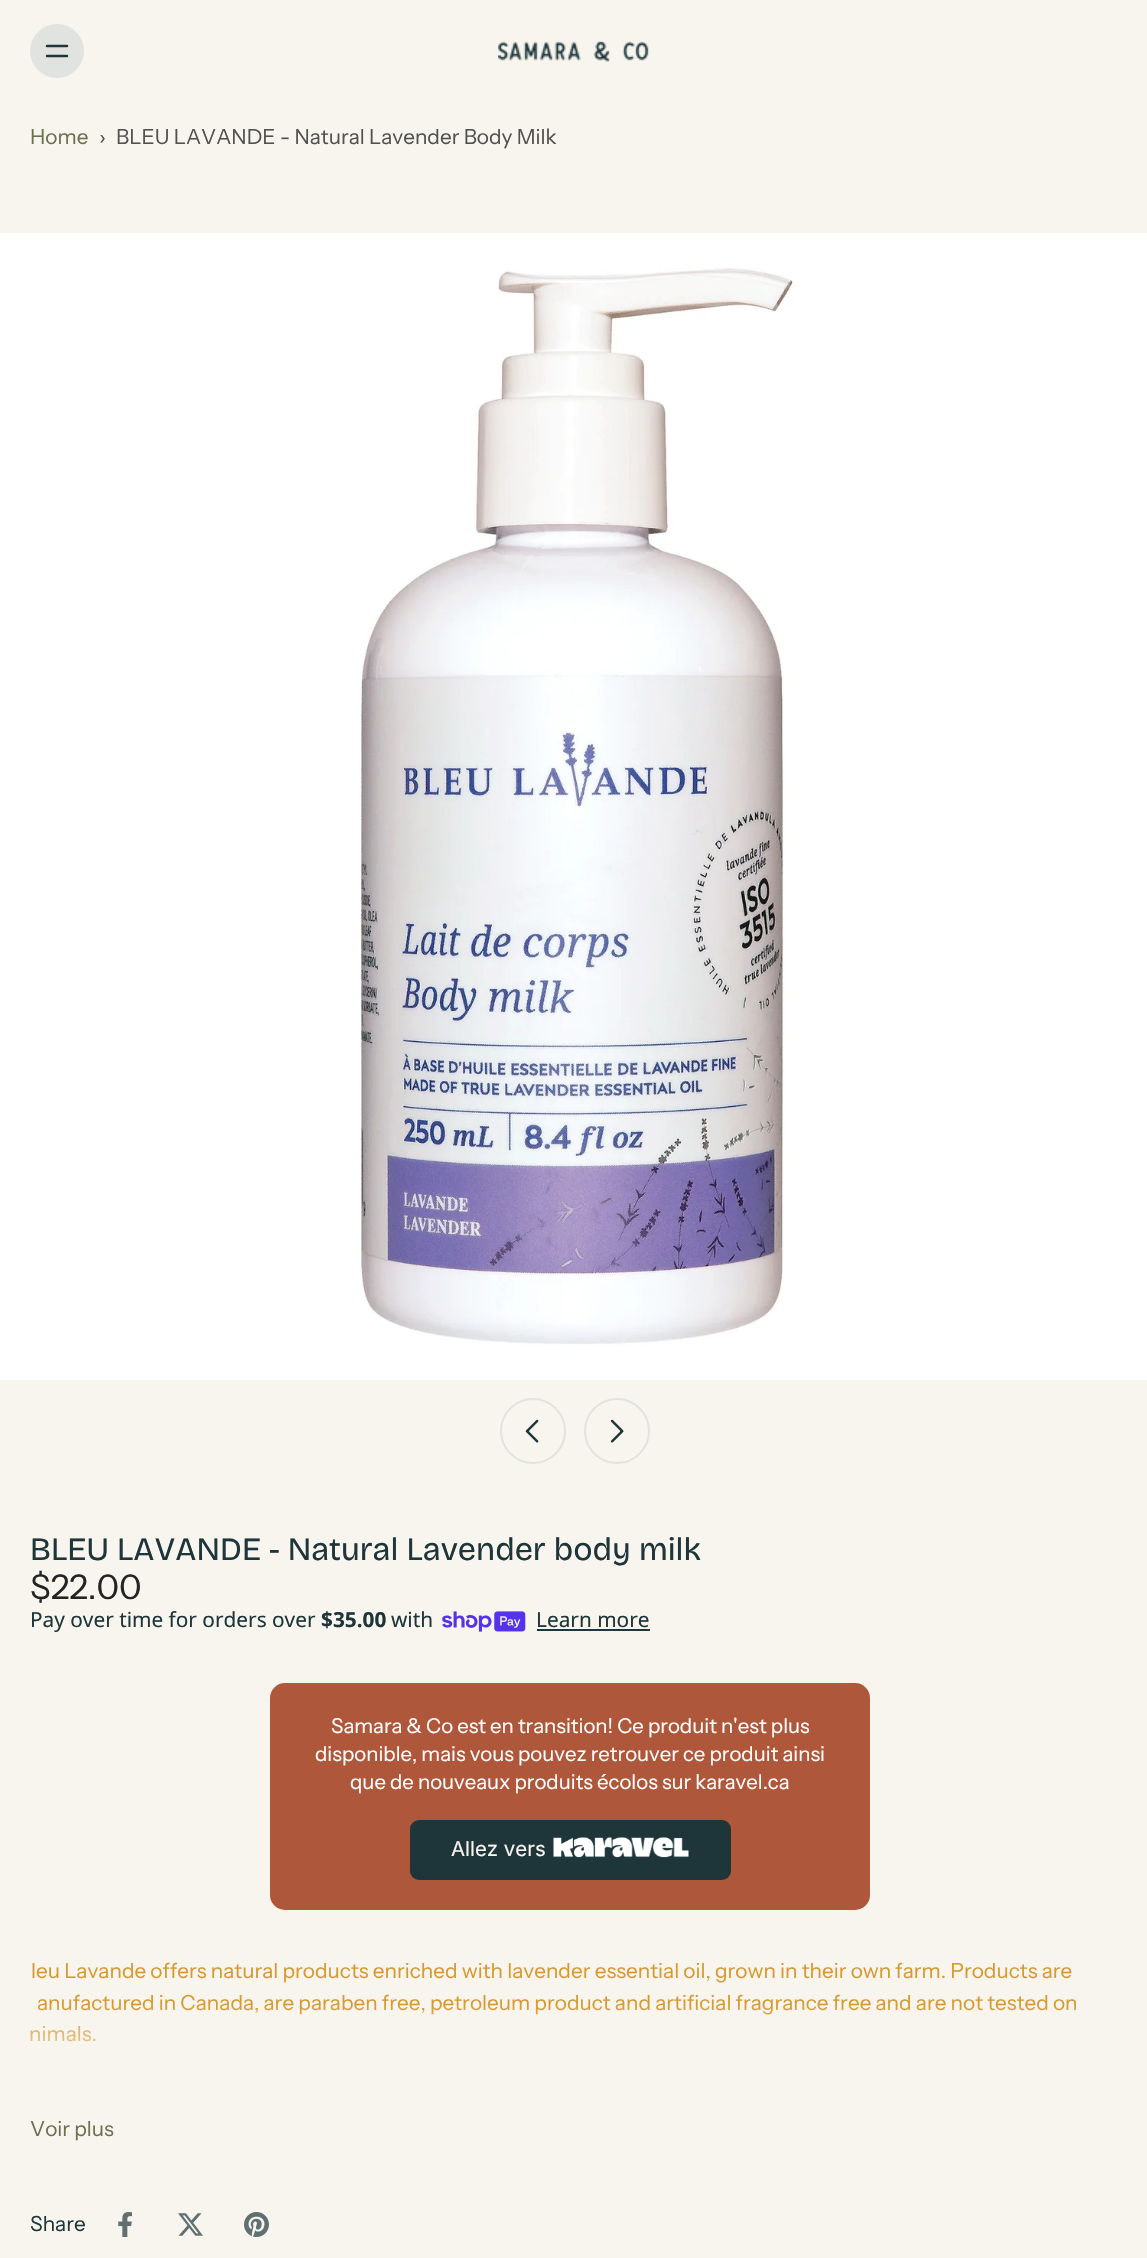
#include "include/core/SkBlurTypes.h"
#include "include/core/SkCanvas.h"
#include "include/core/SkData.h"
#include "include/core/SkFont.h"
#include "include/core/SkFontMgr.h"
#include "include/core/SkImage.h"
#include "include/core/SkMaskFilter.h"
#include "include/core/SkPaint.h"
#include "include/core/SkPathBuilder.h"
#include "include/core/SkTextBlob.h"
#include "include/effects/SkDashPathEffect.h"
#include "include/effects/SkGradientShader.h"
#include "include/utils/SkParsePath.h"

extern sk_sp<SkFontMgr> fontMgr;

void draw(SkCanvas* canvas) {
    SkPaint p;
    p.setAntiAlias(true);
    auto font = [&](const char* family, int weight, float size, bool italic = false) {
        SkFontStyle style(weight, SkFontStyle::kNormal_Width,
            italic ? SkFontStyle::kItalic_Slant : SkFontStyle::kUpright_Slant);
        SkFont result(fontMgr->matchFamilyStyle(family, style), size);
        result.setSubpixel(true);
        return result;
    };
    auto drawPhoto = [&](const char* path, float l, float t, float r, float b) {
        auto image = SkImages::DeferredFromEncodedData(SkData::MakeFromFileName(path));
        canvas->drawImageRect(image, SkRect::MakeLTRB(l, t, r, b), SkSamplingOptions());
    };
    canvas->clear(0xFFF8F5EE);
    p.setColor(0xFFE1E3E1);
    canvas->drawCircle(57, 51, 27, p);
    p.setStyle(SkPaint::kStroke_Style);
    p.setStrokeWidth(2.5f);
    p.setStrokeCap(SkPaint::kRound_Cap);
    p.setColor(0xFF1E353A);
    canvas->drawPath(SkPathBuilder().moveTo(47, 46).lineTo(67, 46).moveTo(47, 56).lineTo(67, 56).detach(), p);
    drawPhoto("media/1.png", 498, 41, 649, 62);
    auto font1 = font("Instrument Sans", 400, 20.8f);
    p.setStyle(SkPaint::kFill_Style);
    p.setColor(0xFF6B7050);
    canvas->drawString("Home", 30, 144, font1, p);
    p.setColor(0xFF525151);
    canvas->drawString("›", 99, 144, font1, p);
    canvas->drawString("BLEU LAVANDE - Natural Lavender Body Milk", 116, 144, font1, p);
    drawPhoto("media/2.png", 0, 233, 1147, 1380);
    p.setStyle(SkPaint::kStroke_Style);
    p.setStrokeWidth(2);
    p.setStrokeCap(SkPaint::kButt_Cap);
    p.setColor(0xFFE1E3E1);
    canvas->drawCircle(533, 1431, 32, p);
    drawPhoto("media/3.png", 525, 1419, 539, 1443);
    canvas->drawCircle(617, 1431, 32, p);
    drawPhoto("media/4.png", 610, 1419, 624, 1443);
    auto font2 = font("Bricolage Grotesque", 400, 32.4f);
    p.setStyle(SkPaint::kFill_Style);
    p.setColor(0xFF1E353A);
    canvas->drawString("BLEU LAVANDE - Natural Lavender body milk", 30, 1560, font2, p);
    auto font3 = font("Instrument Sans", 400, 34);
    p.setColor(0xFF242424);
    canvas->drawString("$22.00", 30, 1599, font3, p);
    auto font4 = font("Noto Sans", 400, 20.8f);
    p.setColor(0xFF1E353A);
    canvas->drawString("Pay over time for orders over", 30, 1627, font4, p);
    auto font5 = font("Noto Sans", 700, 20.8f);
    canvas->drawString("$35.00", 321, 1627, font5, p);
    canvas->drawString("with", 391, 1627, font4, p);
    drawPhoto("media/5.png", 442, 1611, 526, 1632);
    canvas->drawString("Learn more", 536, 1627, font4, p);
    canvas->drawRect(SkRect::MakeLTRB(537, 1629, 650, 1631), p);
    p.setColor(0xFFAE573A);
    canvas->drawRoundRect(SkRect::MakeLTRB(270, 1683, 870, 1910), 15, 15, p);
    auto font6 = font("Instrument Sans", 400, 20.4f);
    p.setColor(0xFFFFFFFF);
    {
        const struct { const char* s; float x, y; } items[] = {
            {"Samara & Co est en transition! Ce produit n'est plus", 331, 1733},
            {"disponible, mais vous pouvez retrouver ce produit ainsi", 315, 1761},
            {"que de nouveaux produits écolos sur karavel.ca", 350, 1789},
        };
        for (auto [s, x, y] : items) {
            canvas->drawString(s, x, y, font6, p);
        }
    }
    p.setColor(0xFF1E353A);
    canvas->drawRoundRect(SkRect::MakeLTRB(410, 1820, 731, 1880), 9, 9, p);
    auto font7 = font("Inter", 400, 20.4f);
    p.setColor(0xFFF8F5EE);
    canvas->drawString("Allez vers", 451, 1856, font7, p);
    drawPhoto("media/6.png", 553, 1837, 689, 1858);
    p.setColor(0xFFD7982E);
    {
        const struct { const char* s; float x, y; } items[] = {
            {"leu Lavande offers natural products enriched with lavender essential oil, grown in their own farm. Products are", 31, 1978},
            {"anufactured in Canada, are paraben free, petroleum product and artificial fragrance free and are not tested on", 37, 2010},
            {"nimals.", 29, 2041},
        };
        for (auto [s, x, y] : items) {
            canvas->drawString(s, x, y, font1, p);
        }
    }
    {
        const SkColor colors[] = {0x00F8F5EE, 0xFFF8F5EE};
        const float stops[] = {0, 1};
        const SkPoint ends[] = {{570, 2003}, {570, 2091}};
        p.setShader(SkGradientShader::MakeLinear(ends, colors, stops, 2, SkTileMode::kClamp));
        p.setAlpha(255);
    }
    canvas->drawRect(SkRect::MakeLTRB(30, 2005, 1076, 2042), p);
    p.setShader(nullptr);
    p.setColor(0xFF6B7050);
    canvas->drawString("Voir plus", 30, 2136, font1, p);
    p.setColor(0xFF1E353A);
    canvas->drawString("Share", 30, 2231, font1, p);
    drawPhoto("media/7.png", 118, 2212, 132, 2237);
    drawPhoto("media/8.png", 178, 2213, 203, 2236);
    drawPhoto("media/9.png", 244, 2212, 269, 2237);
}
